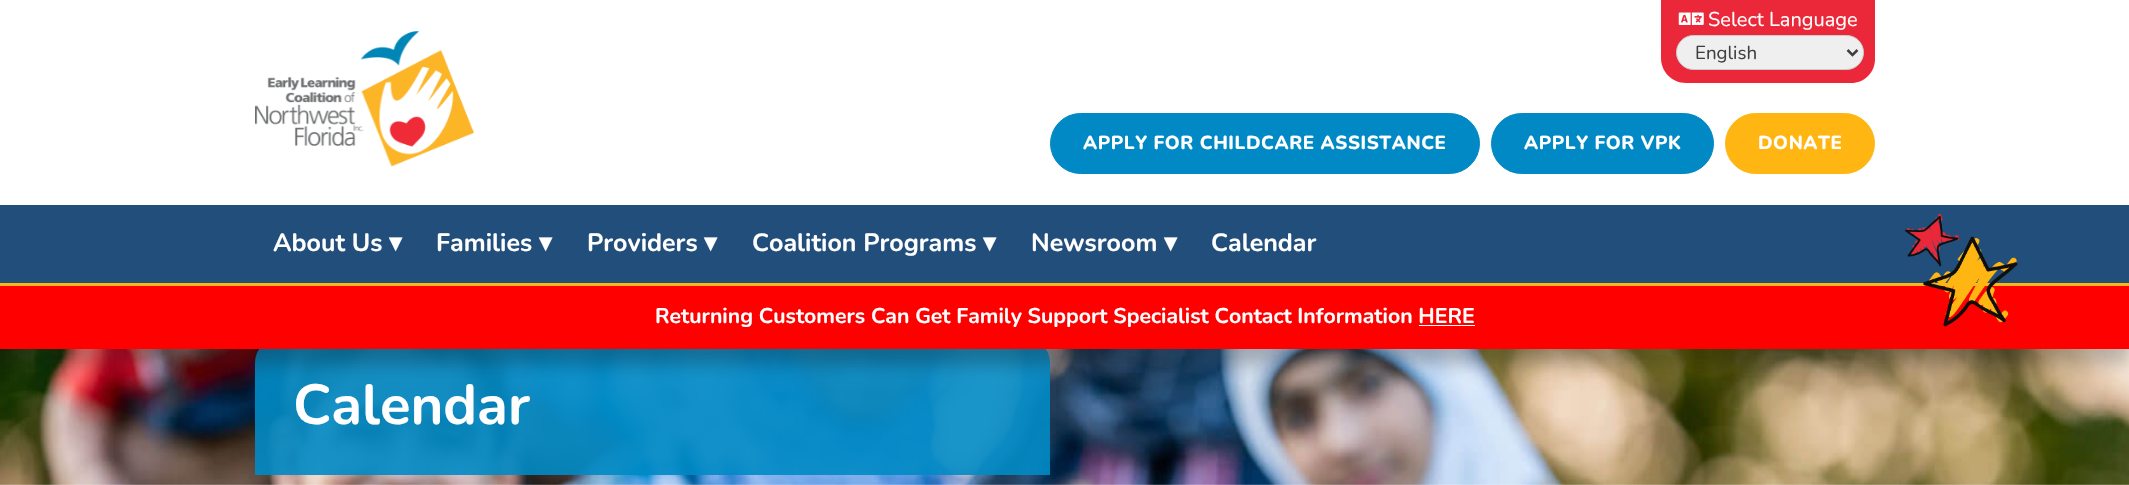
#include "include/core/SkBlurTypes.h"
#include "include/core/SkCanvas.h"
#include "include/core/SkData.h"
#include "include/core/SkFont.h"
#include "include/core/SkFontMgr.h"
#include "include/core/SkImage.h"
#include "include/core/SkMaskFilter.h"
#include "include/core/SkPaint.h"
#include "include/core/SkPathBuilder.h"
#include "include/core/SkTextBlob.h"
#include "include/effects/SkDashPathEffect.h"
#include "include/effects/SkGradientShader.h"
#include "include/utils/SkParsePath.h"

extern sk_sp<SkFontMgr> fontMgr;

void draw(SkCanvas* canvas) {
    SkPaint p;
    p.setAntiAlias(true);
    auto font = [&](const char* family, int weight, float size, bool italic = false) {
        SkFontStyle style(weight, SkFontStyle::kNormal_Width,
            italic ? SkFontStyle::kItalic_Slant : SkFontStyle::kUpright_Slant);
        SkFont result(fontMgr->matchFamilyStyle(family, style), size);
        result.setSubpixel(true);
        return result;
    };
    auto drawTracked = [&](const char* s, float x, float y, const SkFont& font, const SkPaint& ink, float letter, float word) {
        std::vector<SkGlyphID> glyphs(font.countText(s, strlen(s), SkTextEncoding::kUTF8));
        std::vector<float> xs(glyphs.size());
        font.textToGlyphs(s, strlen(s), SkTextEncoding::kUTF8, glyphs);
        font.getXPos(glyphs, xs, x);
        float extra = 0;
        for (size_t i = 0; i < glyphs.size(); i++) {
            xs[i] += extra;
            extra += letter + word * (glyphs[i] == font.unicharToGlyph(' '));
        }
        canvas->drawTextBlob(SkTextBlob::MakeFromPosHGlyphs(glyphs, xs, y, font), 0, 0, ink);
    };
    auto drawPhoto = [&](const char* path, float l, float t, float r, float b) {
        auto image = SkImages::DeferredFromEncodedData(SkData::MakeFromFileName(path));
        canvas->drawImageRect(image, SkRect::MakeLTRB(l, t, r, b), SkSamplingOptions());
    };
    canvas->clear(0xFFFFFFFF);
    drawPhoto("media/4.png", 0, 349, 2129, 485);
    p.setColor(0xE60089C4);
    canvas->drawPath(SkPathBuilder().moveTo(280, 338).lineTo(1025, 338).cubicTo(1039, 338, 1050, 349, 1050, 363).lineTo(1050, 475).lineTo(255, 475).lineTo(255, 363).cubicTo(255, 349, 266, 338, 280, 338).close().detach(), p);
    p.setColor(0x45131212);
    p.setMaskFilter(SkMaskFilter::MakeBlur(kNormal_SkBlurStyle, 8));
    canvas->drawRect(SkRect::MakeLTRB(-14, 0, 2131, 364), p);
    p.setMaskFilter(nullptr);
    p.setColor(0xFFFFFFFF);
    canvas->drawRect(SkRect::MakeLTRB(0, 0, 2129, 205), p);
    drawPhoto("media/1.png", 255, 31, 474, 167);
    p.setColor(0xFFEA2839);
    canvas->drawPath(SkPathBuilder().moveTo(1661, -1).lineTo(1875, -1).lineTo(1875, 59).cubicTo(1875, 72.5f, 1864.5f, 83, 1851, 83).lineTo(1686, 83).cubicTo(1672, 83, 1661, 72, 1661, 58).close().detach(), p);
    drawPhoto("media/2.png", 1678, 12, 1704, 25);
    auto font1 = font("Nunito", 400, 20);
    p.setColor(0xFFFFFFFF);
    canvas->drawString("Select Language", 1708, 26, font1, p);
    p.setColor(0xFFEFEFEF);
    canvas->drawRoundRect(SkRect::MakeLTRB(1676.5f, 35.5f, 1863.5f, 69.5f), 17, 17, p);
    p.setStyle(SkPaint::kStroke_Style);
    p.setStrokeWidth(1);
    p.setColor(0xFFCCCCCC);
    canvas->drawRoundRect(SkRect::MakeLTRB(1676.5f, 35.5f, 1863.5f, 69.5f), 17, 17, p);
    p.setStrokeWidth(2.5f);
    p.setColor(0xFF404040);
    canvas->drawPath(SkPathBuilder().moveTo(1847.5f, 50).lineTo(1852.5f, 55).lineTo(1857.5f, 50).detach(), p);
    auto font2 = font("Nunito", 400, 18.75f);
    p.setStyle(SkPaint::kFill_Style);
    canvas->drawString("English", 1695, 59, font2, p);
    p.setColor(0xFF0089C4);
    canvas->drawRoundRect(SkRect::MakeLTRB(1050.5f, 113.5f, 1479.5f, 173.5f), 30, 30, p);
    p.setStyle(SkPaint::kStroke_Style);
    p.setStrokeWidth(1);
    canvas->drawRoundRect(SkRect::MakeLTRB(1050.5f, 113.5f, 1479.5f, 173.5f), 30, 30, p);
    auto font3 = font("Nunito", 800, 18.75f);
    p.setStyle(SkPaint::kFill_Style);
    p.setColor(0xFFFFFFFF);
    drawTracked("APPLY FOR CHILDCARE ASSISTANCE", 1083, 149, font3, p, 0.6f, 0);
    p.setColor(0xFF0089C4);
    canvas->drawRoundRect(SkRect::MakeLTRB(1491.5f, 113.5f, 1713.5f, 173.5f), 30, 30, p);
    p.setStyle(SkPaint::kStroke_Style);
    canvas->drawRoundRect(SkRect::MakeLTRB(1491.5f, 113.5f, 1713.5f, 173.5f), 30, 30, p);
    p.setStyle(SkPaint::kFill_Style);
    p.setColor(0xFFFFFFFF);
    drawTracked("APPLY FOR VPK", 1524, 149, font3, p, 0.6f, 0);
    p.setColor(0xFFFFB612);
    canvas->drawRoundRect(SkRect::MakeLTRB(1725.5f, 113.5f, 1874.5f, 173.5f), 30, 30, p);
    p.setStyle(SkPaint::kStroke_Style);
    canvas->drawRoundRect(SkRect::MakeLTRB(1725.5f, 113.5f, 1874.5f, 173.5f), 30, 30, p);
    p.setStyle(SkPaint::kFill_Style);
    p.setColor(0xFFFFFFFF);
    drawTracked("DONATE", 1758, 149, font3, p, 0.6f, 0);
    p.setColor(0xFF224E7B);
    canvas->drawRect(SkRect::MakeLTRB(0, 205, 2129, 283), p);
    p.setColor(0xFFFFB612);
    canvas->drawRect(SkRect::MakeLTRB(0, 283, 2129, 286), p);
    auto font4 = font("Nunito", 700, 25);
    p.setColor(0xFFFFFFFF);
    canvas->drawString("About Us", 273, 251, font4, p);
    auto font5 = font("DejaVu Sans", 700, 25);
    canvas->drawString("▾", 389, 251, font5, p);
    canvas->drawString("Families", 436, 251, font4, p);
    canvas->drawString("▾", 539, 251, font5, p);
    canvas->drawString("Providers", 587, 251, font4, p);
    canvas->drawString("▾", 704, 251, font5, p);
    canvas->drawString("Coalition Programs", 752, 251, font4, p);
    canvas->drawString("▾", 983, 251, font5, p);
    canvas->drawString("Newsroom", 1031, 251, font4, p);
    canvas->drawString("▾", 1164, 251, font5, p);
    canvas->drawString("Calendar", 1211, 251, font4, p);
    p.setColor(0xFFFF0000);
    canvas->drawRect(SkRect::MakeLTRB(0, 286, 2129, 349), p);
    drawPhoto("media/3.png", 1905, 213, 2018, 327);
    auto font6 = font("Nunito", 700, 21.25f);
    p.setColor(0xFFFFFFFF);
    canvas->drawString("Returning Customers Can Get Family Support Specialist Contact Information HERE", 655, 323, font6, p);
    canvas->drawRect(SkRect::MakeLTRB(1419, 325, 1475, 326), p);
    auto font7 = font("Nunito", 700, 56.25f);
    canvas->drawString("Calendar", 293, 424, font7, p);
}
